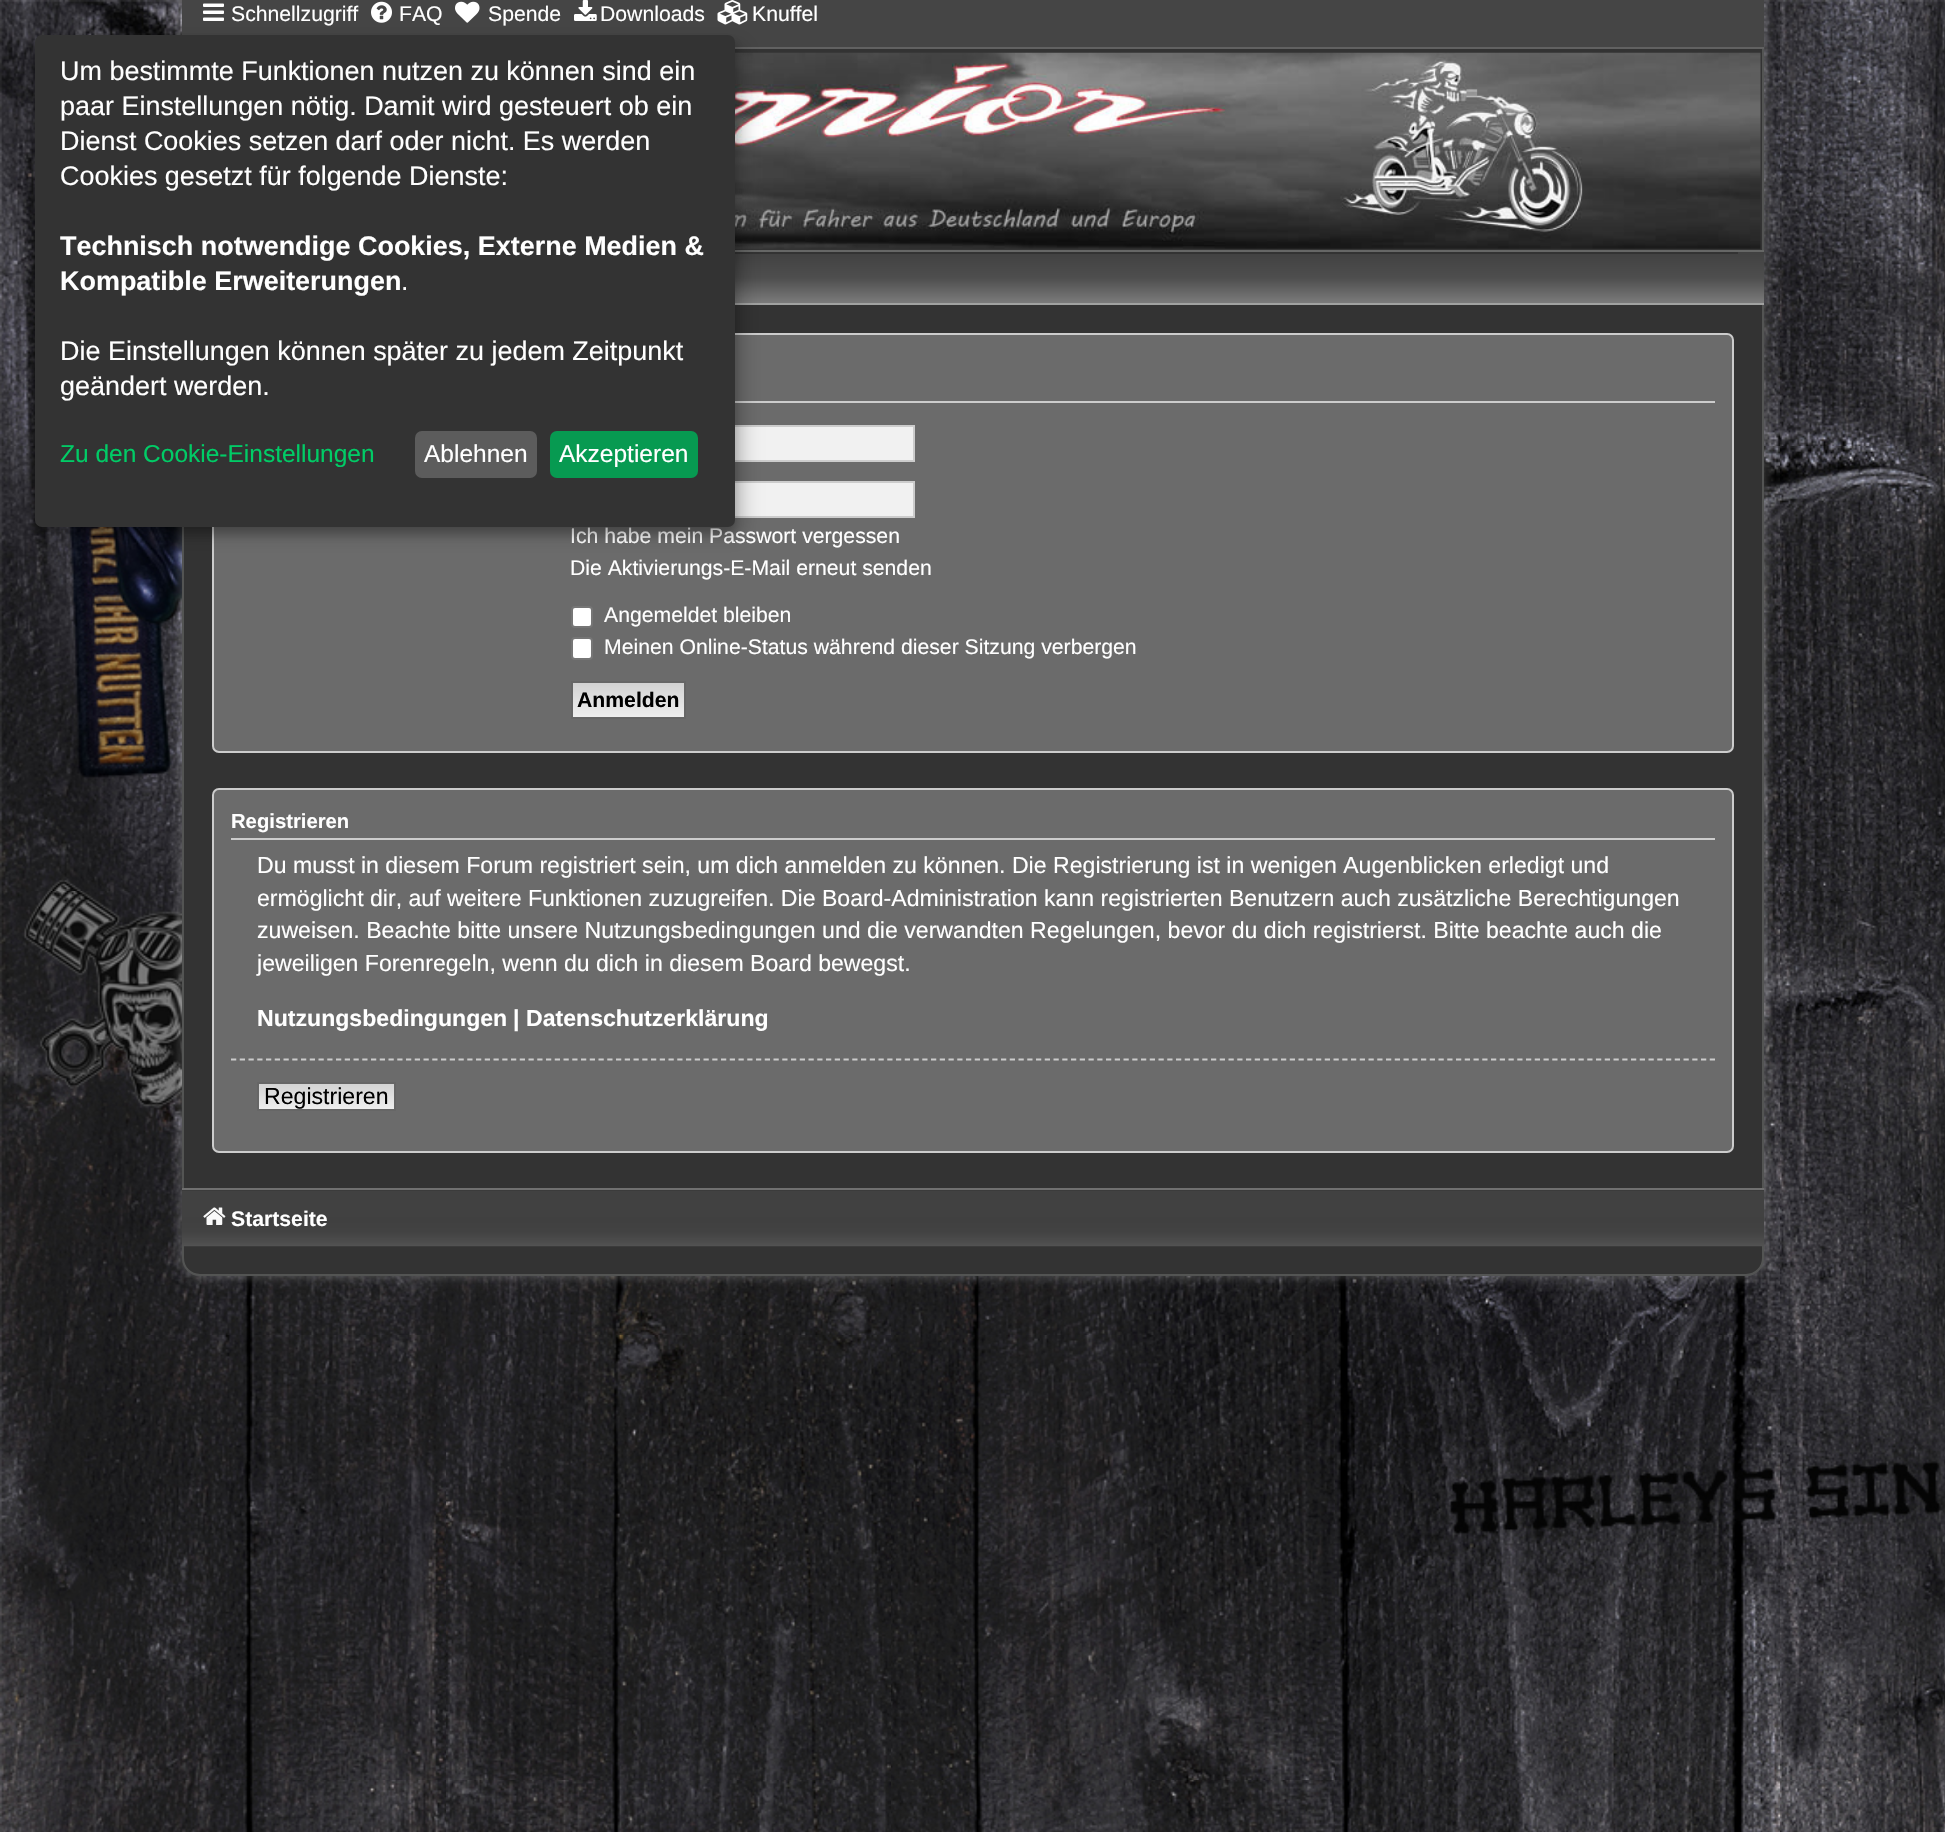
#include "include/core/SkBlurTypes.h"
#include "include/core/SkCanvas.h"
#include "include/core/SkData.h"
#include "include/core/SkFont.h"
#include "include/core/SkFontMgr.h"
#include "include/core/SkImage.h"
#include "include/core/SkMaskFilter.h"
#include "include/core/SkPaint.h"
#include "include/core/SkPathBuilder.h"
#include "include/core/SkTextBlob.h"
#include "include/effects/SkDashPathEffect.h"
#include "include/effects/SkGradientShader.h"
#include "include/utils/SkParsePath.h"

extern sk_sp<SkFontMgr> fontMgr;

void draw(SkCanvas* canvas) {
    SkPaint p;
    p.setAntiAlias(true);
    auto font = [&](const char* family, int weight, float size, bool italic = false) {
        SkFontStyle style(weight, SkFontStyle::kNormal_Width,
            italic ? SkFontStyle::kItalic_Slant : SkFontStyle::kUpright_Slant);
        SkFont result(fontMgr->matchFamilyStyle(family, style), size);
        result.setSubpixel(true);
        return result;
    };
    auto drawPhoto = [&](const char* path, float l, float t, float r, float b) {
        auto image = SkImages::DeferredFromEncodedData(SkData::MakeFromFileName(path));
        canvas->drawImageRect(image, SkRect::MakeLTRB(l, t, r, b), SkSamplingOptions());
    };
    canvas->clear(0xFFFFFFFF);
    drawPhoto("media/1.png", 0, 1302, 1945, 1832);
    drawPhoto("media/2.png", 0, 0, 1945, 1302);
    p.setColor(0x33FFFFFF);
    p.setMaskFilter(SkMaskFilter::MakeBlur(kNormal_SkBlurStyle, 5));
    canvas->drawRoundRect(SkRect::MakeLTRB(179, -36, 1768, 1278), 21, 21, p);
    p.setMaskFilter(nullptr);
    p.setColor(0xFF333333);
    canvas->drawPath(SkPathBuilder().moveTo(183, -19).lineTo(1763, -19).lineTo(1763, 1258).cubicTo(1763, 1267.5f, 1755.5f, 1275, 1746, 1275).lineTo(200, 1275).cubicTo(190.5f, 1275, 183, 1267.5f, 183, 1258).close().detach(), p);
    p.setStyle(SkPaint::kStroke_Style);
    p.setStrokeWidth(2);
    p.setColor(0xFF535453);
    canvas->drawPath(SkPathBuilder().moveTo(183, -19).lineTo(1763, -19).lineTo(1763, 1258).cubicTo(1763, 1267.5f, 1755.5f, 1275, 1746, 1275).lineTo(200, 1275).cubicTo(190.5f, 1275, 183, 1267.5f, 183, 1258).close().detach(), p);
    p.setStyle(SkPaint::kFill_Style);
    p.setColor(0xFF454545);
    canvas->drawRect(SkRect::MakeLTRB(182, 0, 1764, 47), p);
    p.setColor(0xFF616161);
    canvas->drawRect(SkRect::MakeLTRB(735, 47, 1764, 49), p);
    drawPhoto("media/3.png", 735, 52, 1761, 249);
    drawPhoto("media/4.png", 203, 3, 224, 21);
    auto font1 = font("Liberation Sans", 400, 21.2f);
    p.setColor(0xFFFFFFFF);
    canvas->drawString("Schnellzugriff", 231, 21, font1, p);
    drawPhoto("media/5.png", 371, 1, 392, 23);
    canvas->drawString("FAQ", 399, 21, font1, p);
    drawPhoto("media/6.png", 455, 1, 480, 23);
    canvas->drawString("Spende", 488, 21, font1, p);
    drawPhoto("media/7.png", 574, 0, 597, 21);
    canvas->drawString("Downloads", 600, 21, font1, p);
    drawPhoto("media/8.png", 717, 0, 748, 25);
    canvas->drawString("Knuffel", 752, 21, font1, p);
    {
        const SkColor colors[] = {0xFF414141, 0xFF4E4E4E, 0xFF878787, 0xFFFAFAFA};
        const float stops[] = {0, 0.33f, 0.73f, 1};
        const SkPoint ends[] = {{973, 252}, {973, 331}};
        p.setShader(SkGradientShader::MakeLinear(ends, colors, stops, 4, SkTileMode::kClamp));
        p.setAlpha(255);
    }
    canvas->drawRect(SkRect::MakeLTRB(735, 252, 1764, 303), p);
    p.setShader(nullptr);
    {
        const struct { float l, t, r, b; SkColor color; } items[] = {
            {735, 250, 1764, 252, 0xFF666766},
            {735, 303, 1764, 305, 0xFFA1A2A1},
            {735, 252, 1738, 254, 0xFF333333},
        };
        for (auto [l, t, r, b, color] : items) {
            p.setColor(color);
            canvas->drawRect(SkRect::MakeLTRB(l, t, r, b), p);
        }
    }
    p.setColor(0xFF6B6B6B);
    canvas->drawRoundRect(SkRect::MakeLTRB(213, 334, 1733, 752), 6, 6, p);
    p.setStyle(SkPaint::kStroke_Style);
    p.setColor(0xFFCCCCCC);
    canvas->drawRoundRect(SkRect::MakeLTRB(213, 334, 1733, 752), 6, 6, p);
    p.setStyle(SkPaint::kFill_Style);
    canvas->drawRect(SkRect::MakeLTRB(735, 401, 1715, 403), p);
    p.setColor(0xFFF1F1F1);
    canvas->drawRect(SkRect::MakeLTRB(735, 427, 913, 460), p);
    p.setStyle(SkPaint::kStroke_Style);
    p.setColor(0xFFCCCCCC);
    canvas->drawRect(SkRect::MakeLTRB(572, 426, 914, 461), p);
    p.setStyle(SkPaint::kFill_Style);
    p.setColor(0xFFF1F1F1);
    canvas->drawRect(SkRect::MakeLTRB(735, 483, 913, 516), p);
    p.setStyle(SkPaint::kStroke_Style);
    p.setColor(0xFFCCCCCC);
    canvas->drawRect(SkRect::MakeLTRB(572, 482, 914, 517), p);
    p.setStyle(SkPaint::kFill_Style);
    p.setColor(0xFFFFFFFF);
    canvas->drawString("Ich habe mein Passwort vergessen", 570, 543, font1, p);
    canvas->drawString("Die Aktivierungs-E-Mail erneut senden", 570, 575, font1, p);
    canvas->drawRoundRect(SkRect::MakeLTRB(572, 607, 592, 627), 3, 3, p);
    p.setStyle(SkPaint::kStroke_Style);
    p.setColor(0xFF767676);
    canvas->drawRoundRect(SkRect::MakeLTRB(572, 607, 592, 627), 3, 3, p);
    p.setStyle(SkPaint::kFill_Style);
    p.setColor(0xFFFFFFFF);
    canvas->drawString("Angemeldet bleiben", 604, 622, font1, p);
    canvas->drawRoundRect(SkRect::MakeLTRB(572, 638, 592, 659), 3, 3, p);
    p.setStyle(SkPaint::kStroke_Style);
    p.setColor(0xFF767676);
    canvas->drawRoundRect(SkRect::MakeLTRB(572, 638, 592, 659), 3, 3, p);
    p.setStyle(SkPaint::kFill_Style);
    p.setColor(0xFFFFFFFF);
    canvas->drawString("Meinen Online-Status während dieser Sitzung verbergen", 604, 654, font1, p);
    {
        const SkColor colors[] = {0xFFD2D2D2, 0xFFEFEFEF};
        const float stops[] = {0, 1};
        const SkPoint ends[] = {{628, 683}, {628, 718}};
        p.setShader(SkGradientShader::MakeLinear(ends, colors, stops, 2, SkTileMode::kClamp));
        p.setAlpha(255);
    }
    canvas->drawRect(SkRect::MakeLTRB(573, 683, 684, 717), p);
    p.setStyle(SkPaint::kStroke_Style);
    p.setShader(nullptr);
    p.setColor(0xFF666666);
    canvas->drawRect(SkRect::MakeLTRB(572, 682, 685, 718), p);
    auto font2 = font("Liberation Sans", 700, 21.2f);
    p.setStyle(SkPaint::kFill_Style);
    p.setColor(0xFF000000);
    canvas->drawString("Anmelden", 577, 707, font2, p);
    p.setColor(0xFF6B6B6B);
    canvas->drawRoundRect(SkRect::MakeLTRB(213, 789, 1733, 1152), 6, 6, p);
    p.setStyle(SkPaint::kStroke_Style);
    p.setColor(0xFFCCCCCC);
    canvas->drawRoundRect(SkRect::MakeLTRB(213, 789, 1733, 1152), 6, 6, p);
    p.setStyle(SkPaint::kFill_Style);
    canvas->drawRect(SkRect::MakeLTRB(231, 838, 1715, 840), p);
    auto font3 = font("Liberation Sans", 700, 20.25f);
    p.setColor(0xFFFFFFFF);
    canvas->drawString("Registrieren", 231, 828, font3, p);
    auto font4 = font("Liberation Sans", 400, 23.1f);
    {
        const struct { const char* s; float x, y; } items[] = {
            {"Du musst in diesem Forum registriert sein, um dich anmelden zu können. Die Registrierung ist in wenigen Augenblicken erledigt und", 257, 873},
            {"ermöglicht dir, auf weitere Funktionen zuzugreifen. Die Board-Administration kann registrierten Benutzern auch zusätzliche Berechtigungen", 257, 906},
            {"zuweisen. Beachte bitte unsere Nutzungsbedingungen und die verwandten Regelungen, bevor du dich registrierst. Bitte beachte auch die", 257, 938},
            {"jeweiligen Forenregeln, wenn du dich in diesem Board bewegst.", 257, 971},
        };
        for (auto [s, x, y] : items) {
            canvas->drawString(s, x, y, font4, p);
        }
    }
    auto font5 = font("Liberation Sans", 700, 23.1f);
    {
        const struct { const char* s; float x, y; } items[] = {
            {"Nutzungsbedingungen", 257, 1026},
            {"|", 513, 1026},
            {"Datenschutzerklärung", 526, 1026},
        };
        for (auto [s, x, y] : items) {
            canvas->drawString(s, x, y, font5, p);
        }
    }
    p.setStyle(SkPaint::kStroke_Style);
    p.setStrokeWidth(1.8f);
    p.setColor(0xFFCCCCCC);
    p.setPathEffect(SkDashPathEffect::Make({{5.25f, 3.5f}}, 0));
    canvas->drawPath(SkPathBuilder().moveTo(231, 1059.5f).lineTo(1715, 1059.5f).detach(), p);
    p.setPathEffect(nullptr);
    p.setStyle(SkPaint::kFill_Style);
    {
        const SkColor colors[] = {0xFFD2D2D2, 0xFFEFEFEF};
        const float stops[] = {0, 1};
        const SkPoint ends[] = {{326, 1083}, {326, 1110}};
        p.setShader(SkGradientShader::MakeLinear(ends, colors, stops, 2, SkTileMode::kClamp));
        p.setAlpha(255);
    }
    canvas->drawRect(SkRect::MakeLTRB(259, 1084, 394, 1109), p);
    p.setStyle(SkPaint::kStroke_Style);
    p.setStrokeWidth(2);
    p.setShader(nullptr);
    p.setColor(0xFF666666);
    canvas->drawRect(SkRect::MakeLTRB(258, 1083, 395, 1110), p);
    p.setStyle(SkPaint::kFill_Style);
    p.setColor(0xFF000000);
    canvas->drawString("Registrieren", 264, 1104, font4, p);
    drawPhoto("media/9.png", 182, 1190, 1764, 1247);
    p.setColor(0xFF707070);
    canvas->drawRect(SkRect::MakeLTRB(182, 1188, 1764, 1190), p);
    drawPhoto("media/10.png", 203, 1207, 226, 1225);
    p.setColor(0xFFFFFFFF);
    canvas->drawString("Startseite", 231, 1226, font2, p);
    p.setColor(0x30000000);
    p.setMaskFilter(SkMaskFilter::MakeBlur(kNormal_SkBlurStyle, 9));
    canvas->drawRoundRect(SkRect::MakeLTRB(44, 44, 744, 536), 7, 7, p);
    p.setMaskFilter(nullptr);
    p.setColor(0x33000000);
    p.setMaskFilter(SkMaskFilter::MakeBlur(kNormal_SkBlurStyle, 5));
    canvas->drawRoundRect(SkRect::MakeLTRB(35, 42, 735, 534), 7, 7, p);
    p.setMaskFilter(nullptr);
    p.setColor(0xFF333333);
    canvas->drawRoundRect(SkRect::MakeLTRB(35, 35, 735, 527), 7, 7, p);
    auto font6 = font("Liberation Sans", 400, 26.95f);
    p.setColor(0xFFFFFFFF);
    {
        const struct { const char* s; float x, y; } items[] = {
            {"Um bestimmte Funktionen nutzen zu können sind ein", 60, 80},
            {"paar Einstellungen nötig. Damit wird gesteuert ob ein", 60, 115},
            {"Dienst Cookies setzen darf oder nicht. Es werden", 60, 150},
            {"Cookies gesetzt für folgende Dienste:", 60, 185},
        };
        for (auto [s, x, y] : items) {
            canvas->drawString(s, x, y, font6, p);
        }
    }
    auto font7 = font("Liberation Sans", 700, 26.95f);
    canvas->drawString("Technisch notwendige Cookies, Externe Medien &", 60, 255, font7, p);
    canvas->drawString("Kompatible Erweiterungen", 60, 290, font7, p);
    {
        const struct { const char* s; float x, y; } items[] = {
            {".", 401, 290},
            {"Die Einstellungen können später zu jedem Zeitpunkt", 60, 360},
            {"geändert werden.", 60, 395},
        };
        for (auto [s, x, y] : items) {
            canvas->drawString(s, x, y, font6, p);
        }
    }
    auto font8 = font("Liberation Sans", 400, 24.5f);
    p.setColor(0xFF00CC66);
    canvas->drawString("Zu den Cookie-Einstellungen", 60, 462, font8, p);
    p.setColor(0xFF5C5C5C);
    canvas->drawRoundRect(SkRect::MakeLTRB(415, 431, 537, 478), 7, 7, p);
    p.setColor(0xFFFFFFFF);
    canvas->drawString("Ablehnen", 424, 462, font8, p);
    p.setColor(0xFF079A51);
    canvas->drawRoundRect(SkRect::MakeLTRB(550, 431, 698, 478), 7, 7, p);
    p.setColor(0xFFFFFFFF);
    canvas->drawString("Akzeptieren", 559, 462, font8, p);
}
